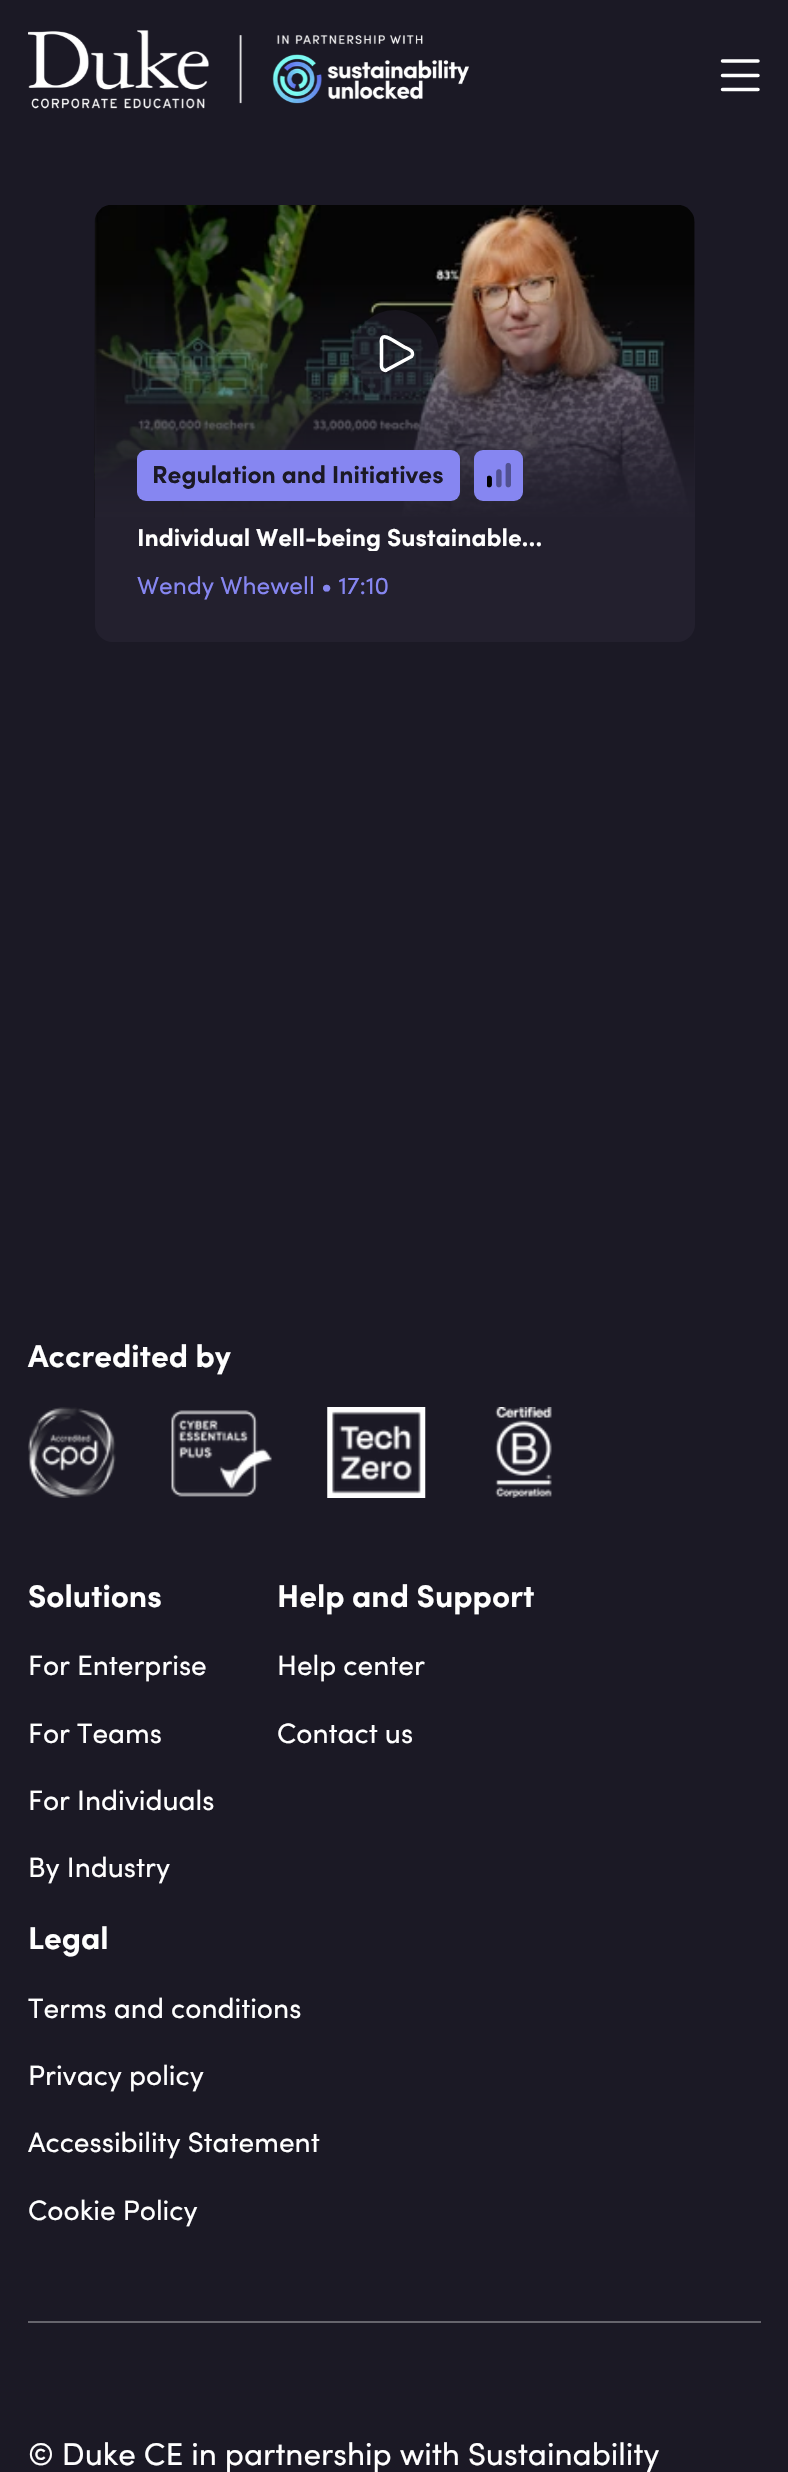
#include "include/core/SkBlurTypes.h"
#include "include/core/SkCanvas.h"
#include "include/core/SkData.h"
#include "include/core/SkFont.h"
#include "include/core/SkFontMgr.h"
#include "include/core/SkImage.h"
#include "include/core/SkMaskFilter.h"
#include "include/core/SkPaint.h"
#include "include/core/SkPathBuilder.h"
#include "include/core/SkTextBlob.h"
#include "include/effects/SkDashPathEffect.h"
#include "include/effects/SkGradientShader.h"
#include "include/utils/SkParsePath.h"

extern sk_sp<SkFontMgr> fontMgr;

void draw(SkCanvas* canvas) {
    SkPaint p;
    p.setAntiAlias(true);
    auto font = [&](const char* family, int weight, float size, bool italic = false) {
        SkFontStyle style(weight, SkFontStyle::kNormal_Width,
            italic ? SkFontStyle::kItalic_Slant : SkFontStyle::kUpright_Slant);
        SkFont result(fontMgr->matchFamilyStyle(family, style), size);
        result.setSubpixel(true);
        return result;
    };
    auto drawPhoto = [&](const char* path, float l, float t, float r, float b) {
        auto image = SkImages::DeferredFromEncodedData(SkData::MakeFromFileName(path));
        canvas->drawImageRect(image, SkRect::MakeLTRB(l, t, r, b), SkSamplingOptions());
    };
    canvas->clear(0xFF1B1925);
    drawPhoto("media/1.png", 28, 30, 469, 109);
    p.setStyle(SkPaint::kStroke_Style);
    p.setStrokeWidth(3.5f);
    p.setStrokeCap(SkPaint::kRound_Cap);
    p.setStrokeJoin(SkPaint::kRound_Join);
    p.setColor(0xFFFFFFFF);
    canvas->drawPath(SkPathBuilder().moveTo(722.5f, 61).lineTo(758, 61).moveTo(722.5f, 75.5f).lineTo(758, 75.5f).moveTo(722.5f, 89.5f).lineTo(758, 89.5f).detach(), p);
    p.setStyle(SkPaint::kFill_Style);
    p.setColor(0xFF23202E);
    canvas->drawRoundRect(SkRect::MakeLTRB(95, 205, 695, 642), 18, 18, p);
    drawPhoto("media/2.png", 94, 205, 695, 518);
    {
        const SkColor colors[] = {0xFF23202E, 0xE623202E, 0x0023202E};
        const float stops[] = {0, 0.17f, 1};
        const SkPoint ends[] = {{395, 518}, {395, 280}};
        p.setShader(SkGradientShader::MakeLinear(ends, colors, stops, 3, SkTileMode::kClamp));
        p.setAlpha(255);
    }
    canvas->drawRect(SkRect::MakeLTRB(95, 285, 695, 518), p);
    p.setShader(nullptr);
    p.setColor(0x8023202E);
    canvas->drawCircle(395.5f, 353.5f, 43.5f, p);
    p.setStyle(SkPaint::kStroke_Style);
    p.setColor(0xFFFFFFFF);
    canvas->drawPath(SkPathBuilder().moveTo(386.5f, 370).cubicTo(386, 370.5f, 385, 370.5f, 384, 370).cubicTo(380.5f, 369, 381.5f, 365, 381.5f, 362.5f).lineTo(381.5f, 344.5f).cubicTo(381.5f, 342.5f, 380.5f, 338.5f, 383, 337).cubicTo(386, 335.5f, 390, 339, 392.5f, 340).lineTo(405, 347.5f).cubicTo(407.5f, 348.5f, 413.5f, 350.5f, 412.5f, 354.5f).lineTo(411.5f, 356.5f).close().detach(), p);
    p.setStyle(SkPaint::kFill_Style);
    p.setColor(0xFF8686F1);
    canvas->drawRoundRect(SkRect::MakeLTRB(137, 450, 460, 501), 9, 9, p);
    auto font1 = font("Sofia", 700, 24.5f);
    p.setColor(0xFF1B1925);
    canvas->drawString("Regulation and Initiatives", 152, 483, font1, p);
    p.setColor(0xFF8686F1);
    canvas->drawRoundRect(SkRect::MakeLTRB(474, 450, 523, 501), 9, 9, p);
    drawPhoto("media/3.png", 487, 462, 511, 488);
    canvas->save();
    canvas->clipRect(SkRect::MakeLTRB(137, 522, 653, 551));
    p.setColor(0xFFFFFFFF);
    canvas->drawString("Individual Well-being Sustainable…", 137, 546, font1, p);
    canvas->restore();
    auto font2 = font("Sofia", 400, 24.5f);
    p.setColor(0xFF8686F1);
    canvas->drawString("Wendy Whewell • 17:10", 137, 594, font2, p);
    p.setColor(0xFF66656D);
    canvas->drawRect(SkRect::MakeLTRB(28, 2321, 761, 2323), p);
    auto font3 = font("Sofia", 700, 31.5f);
    p.setColor(0xFFFFFFFF);
    canvas->drawString("Accredited by", 28, 1367, font3, p);
    drawPhoto("media/4.png", 28, 1407, 116, 1498);
    drawPhoto("media/5.png", 171, 1410, 272, 1497);
    drawPhoto("media/6.png", 327, 1407, 426, 1498);
    drawPhoto("media/7.png", 495, 1407, 552, 1498);
    canvas->drawString("Solutions", 28, 1607, font3, p);
    auto font4 = font("Sofia", 400, 28);
    {
        const struct { const char* s; float x, y; } items[] = {
            {"For Enterprise", 28, 1675},
            {"For Teams", 28, 1743},
            {"For Individuals", 28, 1810},
            {"By Industry", 28, 1877},
        };
        for (auto [s, x, y] : items) {
            canvas->drawString(s, x, y, font4, p);
        }
    }
    canvas->drawString("Help and Support", 277, 1607, font3, p);
    canvas->drawString("Help center", 277, 1675, font4, p);
    canvas->drawString("Contact us", 277, 1743, font4, p);
    canvas->drawString("Legal", 28, 1949, font3, p);
    {
        const struct { const char* s; float x, y; } items[] = {
            {"Terms and conditions", 28, 2018},
            {"Privacy policy", 28, 2085},
            {"Accessibility Statement", 28, 2152},
            {"Cookie Policy", 28, 2220},
        };
        for (auto [s, x, y] : items) {
            canvas->drawString(s, x, y, font4, p);
        }
    }
    auto font5 = font("Sofia", 400, 31.5f);
    canvas->drawString("© Duke CE in partnership with Sustainability", 28, 2465, font5, p);
}
